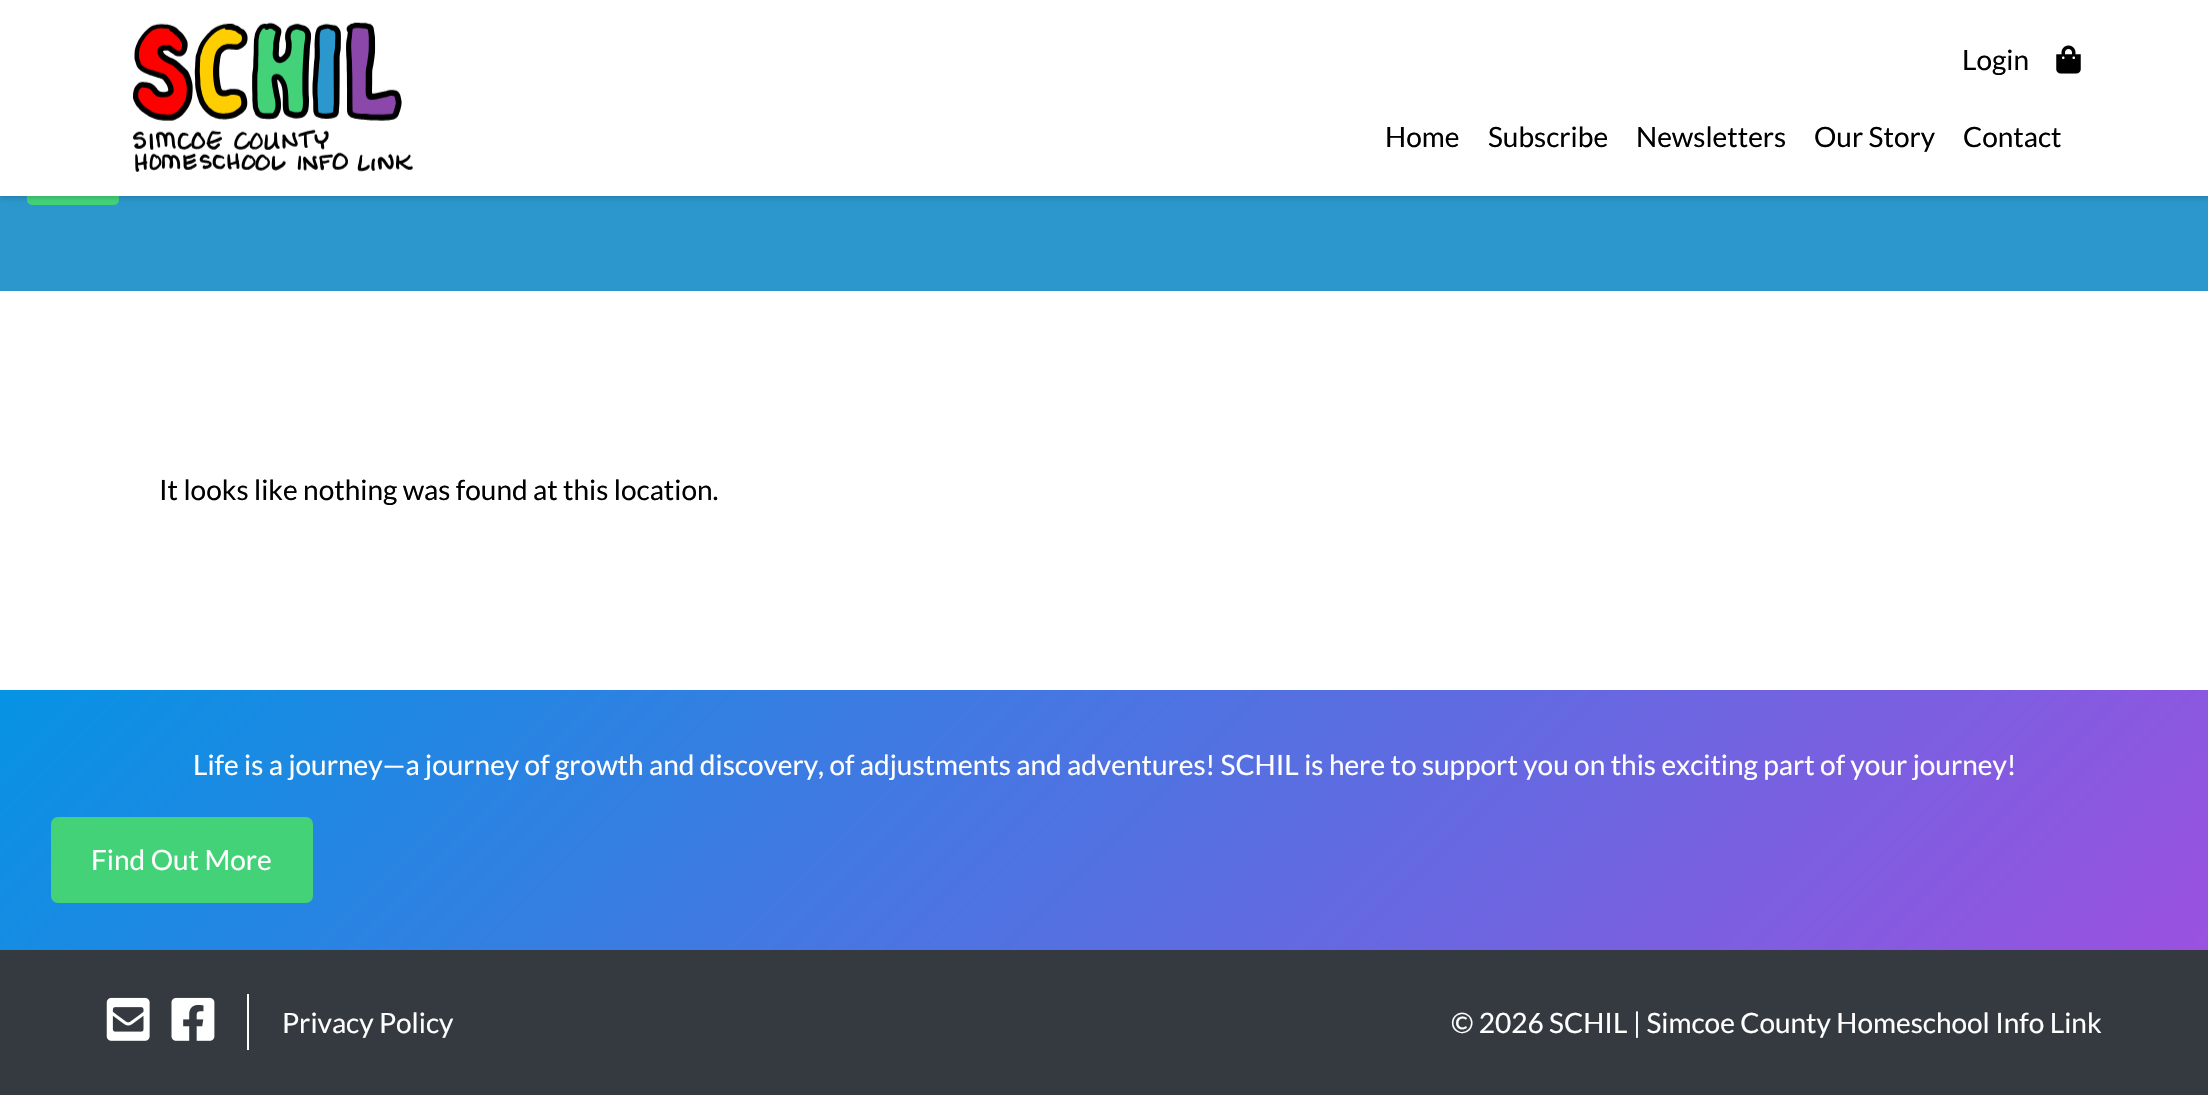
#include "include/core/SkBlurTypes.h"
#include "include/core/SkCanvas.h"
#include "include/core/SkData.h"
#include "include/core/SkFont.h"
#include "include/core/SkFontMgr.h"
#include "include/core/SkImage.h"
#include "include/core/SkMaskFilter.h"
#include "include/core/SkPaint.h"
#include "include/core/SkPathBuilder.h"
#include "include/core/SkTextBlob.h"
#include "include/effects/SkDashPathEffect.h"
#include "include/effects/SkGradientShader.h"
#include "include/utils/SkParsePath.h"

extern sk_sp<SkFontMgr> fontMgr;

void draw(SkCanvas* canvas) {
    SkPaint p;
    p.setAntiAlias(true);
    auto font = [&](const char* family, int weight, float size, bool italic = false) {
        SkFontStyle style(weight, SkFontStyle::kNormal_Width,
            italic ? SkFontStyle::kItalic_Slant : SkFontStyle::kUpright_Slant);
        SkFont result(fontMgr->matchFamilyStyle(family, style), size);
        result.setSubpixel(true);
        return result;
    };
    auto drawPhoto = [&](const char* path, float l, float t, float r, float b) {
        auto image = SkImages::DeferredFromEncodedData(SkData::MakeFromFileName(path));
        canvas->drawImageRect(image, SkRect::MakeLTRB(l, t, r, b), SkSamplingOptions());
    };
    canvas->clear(0xFFFFFFFF);
    p.setColor(0xFF2B97CC);
    canvas->drawRect(SkRect::MakeLTRB(0, 196, 2208, 291), p);
    p.setColor(0xFF43D278);
    canvas->drawRoundRect(SkRect::MakeLTRB(26, 141, 120, 206), 6, 6, p);
    p.setStyle(SkPaint::kStroke_Style);
    p.setStrokeWidth(2);
    p.setColor(0xFF2B97CC);
    canvas->drawRoundRect(SkRect::MakeLTRB(26, 141, 120, 206), 6, 6, p);
    p.setStyle(SkPaint::kFill_Style);
    p.setColor(0x29000000);
    p.setMaskFilter(SkMaskFilter::MakeBlur(kNormal_SkBlurStyle, 2.5f));
    canvas->drawRect(SkRect::MakeLTRB(0, 2, 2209, 198), p);
    p.setMaskFilter(nullptr);
    p.setColor(0xFFFFFFFF);
    canvas->drawRect(SkRect::MakeLTRB(0, 0, 2208, 196), p);
    drawPhoto("media/1.png", 133, 22, 413, 172);
    auto font1 = font("Lato", 400, 28);
    p.setColor(0xFF000000);
    canvas->drawString("Login", 1962, 70, font1, p);
    drawPhoto("media/2.png", 2056, 45, 2081, 74);
    {
        const struct { const char* s; float x, y; } items[] = {
            {"Home", 1385, 147},
            {"Subscribe", 1488, 147},
            {"Newsletters", 1636, 147},
            {"Our Story", 1814, 147},
            {"Contact", 1963, 147},
            {"It looks like nothing was found at this location.", 159, 500},
        };
        for (auto [s, x, y] : items) {
            canvas->drawString(s, x, y, font1, p);
        }
    }
    {
        const SkColor colors[] = {0xFF0693E3, 0xFF9B51E0};
        const float stops[] = {0, 1};
        const SkPoint ends[] = {{486, 203}, {1722, 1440}};
        p.setShader(SkGradientShader::MakeLinear(ends, colors, stops, 2, SkTileMode::kClamp));
        p.setAlpha(255);
    }
    canvas->drawRect(SkRect::MakeLTRB(0, 690, 2208, 950), p);
    p.setShader(nullptr);
    p.setColor(0xFFFFFFFF);
    canvas->drawString("Life is a journey—a journey of growth and discovery, of adjustments and adventures! SCHIL is here to support you on this exciting part of your journey!", 193, 775, font1, p);
    p.setColor(0xFF43D278);
    canvas->drawRoundRect(SkRect::MakeLTRB(53, 819, 311, 901), 5, 5, p);
    p.setStyle(SkPaint::kStroke_Style);
    p.setStrokeWidth(4);
    canvas->drawRoundRect(SkRect::MakeLTRB(53, 819, 311, 901), 5, 5, p);
    p.setStyle(SkPaint::kFill_Style);
    p.setColor(0xFFFFFFFF);
    canvas->drawString("Find Out More", 91, 870, font1, p);
    p.setColor(0xFF343A40);
    canvas->drawRect(SkRect::MakeLTRB(0, 950, 2208, 1095), p);
    drawPhoto("media/3.png", 106, 997, 150, 1041);
    drawPhoto("media/4.png", 171, 997, 215, 1041);
    p.setColor(0xFFFFFFFF);
    canvas->drawRect(SkRect::MakeLTRB(247, 994, 249, 1050), p);
    canvas->drawString("Privacy Policy", 282, 1033, font1, p);
    canvas->drawString("© 2026 SCHIL | Simcoe County Homeschool Info Link", 1451, 1033, font1, p);
}
